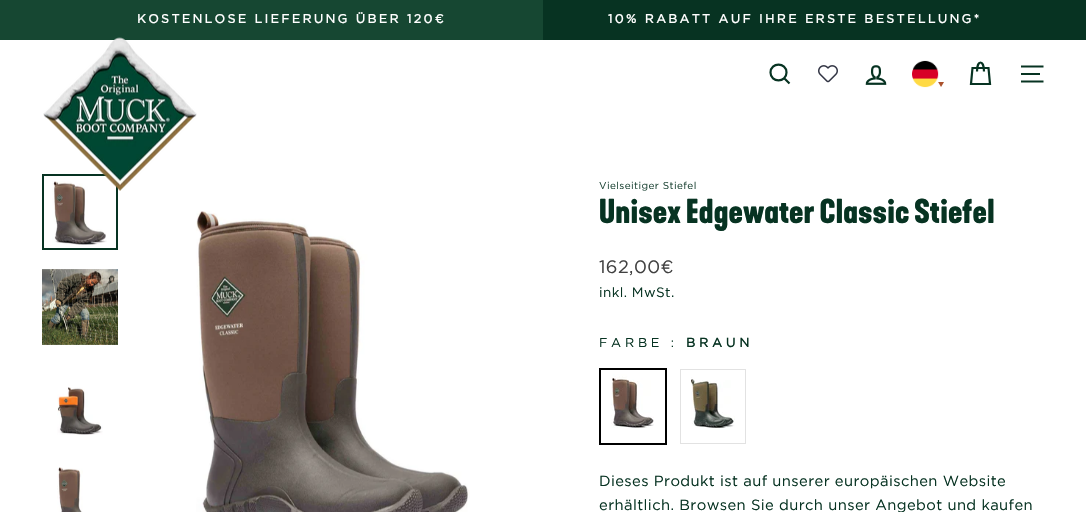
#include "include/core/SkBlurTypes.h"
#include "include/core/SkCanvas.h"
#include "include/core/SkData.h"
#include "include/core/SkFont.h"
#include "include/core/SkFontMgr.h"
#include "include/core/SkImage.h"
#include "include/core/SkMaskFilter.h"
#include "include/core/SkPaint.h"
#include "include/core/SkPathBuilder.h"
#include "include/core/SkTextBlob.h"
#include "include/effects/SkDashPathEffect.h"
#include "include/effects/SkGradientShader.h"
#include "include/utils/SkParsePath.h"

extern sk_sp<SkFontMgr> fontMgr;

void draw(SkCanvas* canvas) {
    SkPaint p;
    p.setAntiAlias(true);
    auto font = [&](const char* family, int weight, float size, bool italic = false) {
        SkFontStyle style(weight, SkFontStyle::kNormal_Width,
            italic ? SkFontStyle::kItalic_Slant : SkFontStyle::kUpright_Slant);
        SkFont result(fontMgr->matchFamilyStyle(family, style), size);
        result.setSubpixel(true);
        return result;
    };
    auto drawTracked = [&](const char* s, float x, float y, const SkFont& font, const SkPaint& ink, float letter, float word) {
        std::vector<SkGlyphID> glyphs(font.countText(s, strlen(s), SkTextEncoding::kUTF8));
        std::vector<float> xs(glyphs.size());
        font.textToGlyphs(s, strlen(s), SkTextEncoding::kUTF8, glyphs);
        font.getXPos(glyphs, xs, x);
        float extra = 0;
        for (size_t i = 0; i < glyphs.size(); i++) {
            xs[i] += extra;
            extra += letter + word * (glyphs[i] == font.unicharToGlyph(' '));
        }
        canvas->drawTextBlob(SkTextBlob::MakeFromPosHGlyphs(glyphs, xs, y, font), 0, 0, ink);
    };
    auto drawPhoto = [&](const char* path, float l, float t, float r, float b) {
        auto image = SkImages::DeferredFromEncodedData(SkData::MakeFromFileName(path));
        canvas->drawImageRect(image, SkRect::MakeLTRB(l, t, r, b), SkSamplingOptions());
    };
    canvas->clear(0xFFFFFFFF);
    p.setColor(0xFF164732);
    canvas->drawRect(SkRect::MakeLTRB(0, 0, 543, 40), p);
    p.setColor(0xFF073322);
    canvas->drawRect(SkRect::MakeLTRB(543, 0, 1086, 40), p);
    auto font1 = font("Gotham", 700, 12.25f);
    p.setColor(0xFFFFFFFF);
    drawTracked("KOSTENLOSE LIEFERUNG ÜBER 120€", 137, 23, font1, p, 2.45f, 0);
    drawTracked("10% RABATT AUF IHRE ERSTE BESTELLUNG*", 608, 23, font1, p, 2.45f, 0);
    drawPhoto("media/5.png", 52, 181, 107, 245);
    p.setStyle(SkPaint::kStroke_Style);
    p.setStrokeWidth(2);
    p.setColor(0xFF073322);
    canvas->drawRect(SkRect::MakeLTRB(43, 175, 117, 249), p);
    drawPhoto("media/1.png", 43, 37, 197, 191);
    p.setStrokeWidth(2.2f);
    canvas->drawPath(SkPathBuilder().moveTo(786.5f, 72.5f).cubicTo(786.5f, 83, 770.5f, 83, 770.5f, 72.5f).cubicTo(770.5f, 62, 786.5f, 62, 786.5f, 72.5f).close().moveTo(789.5f, 83.5f).lineTo(784.5f, 78.5f).detach(), p);
    drawPhoto("media/2.png", 818, 65, 838, 83);
    drawPhoto("media/3.png", 865, 65, 887, 85);
    drawPhoto("media/4.png", 912, 60, 944, 88);
    canvas->drawPath(SkPathBuilder().moveTo(977, 71.5f).cubicTo(977, 59.5f, 984, 59.5f, 984, 71.5f).moveTo(972.5f, 68).lineTo(988.5f, 68).lineTo(990, 84).lineTo(971, 84).close().detach(), p);
    canvas->drawPath(SkPathBuilder().moveTo(1021, 66.5f).lineTo(1043.5f, 66.5f).moveTo(1021, 74).lineTo(1040, 74).moveTo(1021, 81.5f).lineTo(1043.5f, 81.5f).detach(), p);
    drawPhoto("media/6.png", 42, 269, 118, 345);
    drawPhoto("media/7.png", 57, 387, 103, 435);
    drawPhoto("media/8.png", 57, 467, 83, 512);
    drawPhoto("media/9.png", 196, 211, 470, 512);
    auto font2 = font("Gotham", 400, 10);
    p.setStyle(SkPaint::kFill_Style);
    p.setColor(0xFF204738);
    drawTracked("Vielseitiger Stiefel", 599, 189, font2, p, 0.4f, 0);
    auto font3 = font("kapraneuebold", 700, 32.25f);
    p.setColor(0xFF073322);
    canvas->drawString("Unisex Edgewater Classic Stiefel", 599, 223, font3, p);
    auto font4 = font("Gotham", 400, 18);
    p.setColor(0xFF414141);
    drawTracked("162,00€", 599, 273, font4, p, 0.4f, 0);
    auto font5 = font("Gotham", 400, 13.5f);
    p.setColor(0xFF073322);
    drawTracked("inkl. MwSt.", 599, 297, font5, p, 0.4f, 0);
    auto font6 = font("Gotham", 400, 12.75f);
    drawTracked("FARBE :", 599, 347, font6, p, 3.75f, 0);
    auto font7 = font("Gotham", 700, 12.75f);
    drawTracked("BRAUN", 686, 347, font7, p, 3.75f, 0);
    p.setStyle(SkPaint::kStroke_Style);
    p.setStrokeWidth(2);
    p.setColor(0xFF000000);
    canvas->drawRect(SkRect::MakeLTRB(600, 369, 666, 444), p);
    drawPhoto("media/10.png", 611, 374, 654, 428);
    p.setStrokeWidth(1);
    p.setColor(0xFFE2E2E2);
    canvas->drawRect(SkRect::MakeLTRB(680.5f, 369.5f, 745.5f, 443.5f), p);
    drawPhoto("media/11.png", 691, 377, 735, 428);
    auto font8 = font("Gotham", 400, 14.75f);
    p.setStyle(SkPaint::kFill_Style);
    p.setColor(0xFF073322);
    drawTracked("Dieses Produkt ist auf unserer europäischen Website", 599, 486, font8, p, 0.4f, 0);
    drawTracked("erhältlich. Browsen Sie durch unser Angebot und kaufen", 599, 510, font8, p, 0.4f, 0);
}
